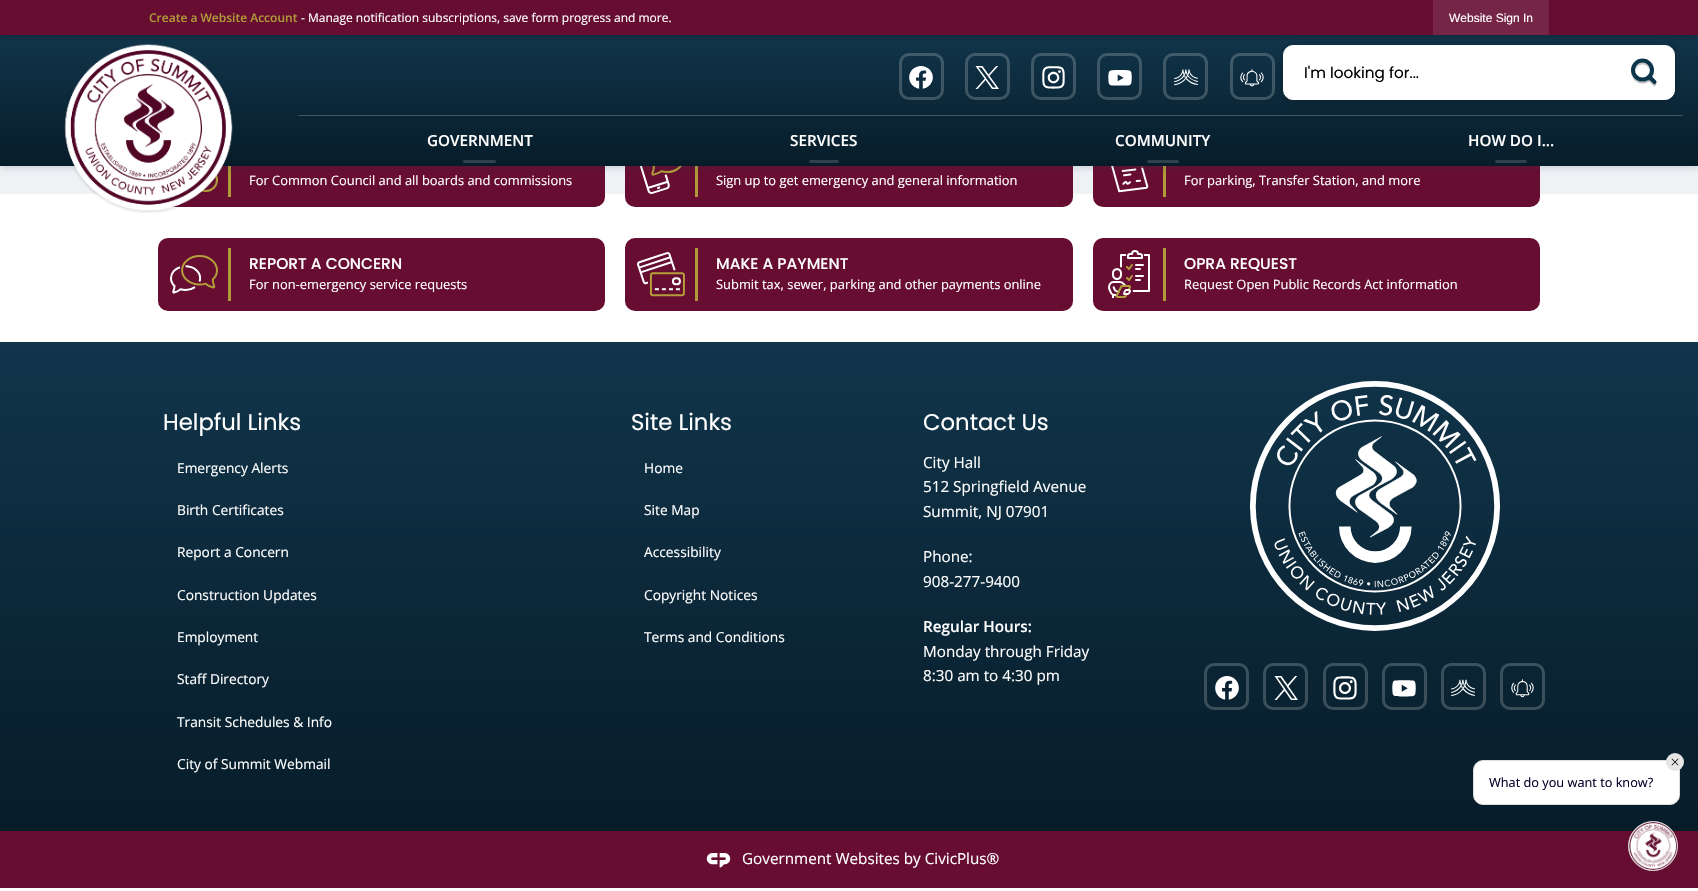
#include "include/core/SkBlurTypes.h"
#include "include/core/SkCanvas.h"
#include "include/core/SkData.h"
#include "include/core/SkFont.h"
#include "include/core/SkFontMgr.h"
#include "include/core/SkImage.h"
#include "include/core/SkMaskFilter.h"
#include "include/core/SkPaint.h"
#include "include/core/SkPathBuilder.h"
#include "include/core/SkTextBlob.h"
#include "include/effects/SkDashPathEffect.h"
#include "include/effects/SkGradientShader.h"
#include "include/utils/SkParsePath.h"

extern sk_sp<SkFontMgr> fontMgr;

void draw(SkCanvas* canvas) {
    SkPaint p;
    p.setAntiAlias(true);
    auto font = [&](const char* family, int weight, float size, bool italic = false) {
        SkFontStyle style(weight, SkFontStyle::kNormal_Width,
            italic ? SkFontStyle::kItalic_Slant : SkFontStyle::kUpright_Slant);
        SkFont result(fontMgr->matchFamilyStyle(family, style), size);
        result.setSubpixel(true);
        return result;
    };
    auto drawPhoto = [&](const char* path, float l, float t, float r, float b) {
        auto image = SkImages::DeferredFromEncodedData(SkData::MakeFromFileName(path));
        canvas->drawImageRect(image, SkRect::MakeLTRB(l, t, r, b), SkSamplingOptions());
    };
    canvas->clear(0xFFFFFFFF);
    {
        const SkColor colors[] = {0xFFFFFFFF, 0xFFEEF2F5};
        const float stops[] = {0, 1};
        const SkPoint ends[] = {{849, -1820}, {849, 194}};
        p.setShader(SkGradientShader::MakeLinear(ends, colors, stops, 2, SkTileMode::kClamp));
        p.setAlpha(255);
    }
    canvas->drawRect(SkRect::MakeLTRB(0, 166, 1698, 194), p);
    p.setShader(nullptr);
    p.setColor(0xFF660D31);
    canvas->drawRoundRect(SkRect::MakeLTRB(158, 134, 605, 207), 10, 10, p);
    drawPhoto("media/9.png", 201, 169, 218, 192);
    p.setColor(0xFFB09B39);
    canvas->drawRect(SkRect::MakeLTRB(228, 166, 231, 197), p);
    p.setColor(0xFF660D31);
    canvas->drawRoundRect(SkRect::MakeLTRB(625, 134, 1073, 207), 10, 10, p);
    drawPhoto("media/11.png", 639, 166, 682, 194);
    p.setColor(0xFFB09B39);
    canvas->drawRect(SkRect::MakeLTRB(695, 166, 698, 197), p);
    p.setColor(0xFF660D31);
    canvas->drawRoundRect(SkRect::MakeLTRB(1093, 134, 1540, 207), 10, 10, p);
    drawPhoto("media/13.png", 1111, 166, 1149, 193);
    p.setColor(0xFFB09B39);
    canvas->drawRect(SkRect::MakeLTRB(1163, 166, 1166, 197), p);
    p.setColor(0x2622354D);
    p.setMaskFilter(SkMaskFilter::MakeBlur(kNormal_SkBlurStyle, 3));
    canvas->drawRect(SkRect::MakeLTRB(0, 37, 1698, 169), p);
    p.setMaskFilter(nullptr);
    {
        const SkColor colors[] = {0xFF11354B, 0xFF071C29};
        const float stops[] = {0, 1};
        const SkPoint ends[] = {{849, 34}, {849, 166}};
        p.setShader(SkGradientShader::MakeLinear(ends, colors, stops, 2, SkTileMode::kClamp));
        p.setAlpha(255);
    }
    canvas->drawRect(SkRect::MakeLTRB(0, 35, 1698, 166), p);
    p.setShader(nullptr);
    p.setColor(0x33000000);
    p.setMaskFilter(SkMaskFilter::MakeBlur(kNormal_SkBlurStyle, 2));
    canvas->drawRect(SkRect::MakeLTRB(0, 2, 1698, 37), p);
    p.setMaskFilter(nullptr);
    p.setStyle(SkPaint::kStroke_Style);
    p.setStrokeWidth(3);
    p.setColor(0x33FFFFFF);
    canvas->drawRoundRect(SkRect::MakeLTRB(1231.5f, 54.5f, 1273.5f, 98.5f), 8.5f, 8.5f, p);
    p.setStyle(SkPaint::kFill_Style);
    p.setColor(0x36000000);
    p.setMaskFilter(SkMaskFilter::MakeBlur(kNormal_SkBlurStyle, 4.5f));
    canvas->drawRoundRect(SkRect::MakeLTRB(1283, 45, 1675, 100), 10, 10, p);
    p.setMaskFilter(nullptr);
    p.setColor(0xFF660D31);
    canvas->drawRect(SkRect::MakeLTRB(0, 0, 1698, 35), p);
    auto font1 = font("Open Sans", 600, 12);
    p.setColor(0xFFB09B39);
    canvas->drawString("Create a Website Account", 149, 22, font1, p);
    auto font2 = font("Open Sans", 400, 12);
    p.setColor(0xFFFFFFFF);
    canvas->drawString("- Manage notification subscriptions, save form progress and more.", 301, 22, font2, p);
    p.setColor(0xFF752546);
    canvas->drawRect(SkRect::MakeLTRB(1433, 0, 1549, 35), p);
    auto font3 = font("Liberation Sans", 400, 12);
    p.setColor(0xFFFFFFFF);
    canvas->drawString("Website Sign In", 1449, 22, font3, p);
    drawPhoto("media/1.png", 64, 44, 233, 213);
    p.setStyle(SkPaint::kStroke_Style);
    p.setColor(0x33FFFFFF);
    canvas->drawRoundRect(SkRect::MakeLTRB(900.5f, 54.5f, 942.5f, 98.5f), 8.5f, 8.5f, p);
    drawPhoto("media/2.png", 909, 66, 933, 89);
    canvas->drawRoundRect(SkRect::MakeLTRB(966.5f, 54.5f, 1008.5f, 98.5f), 8.5f, 8.5f, p);
    drawPhoto("media/3.png", 975, 66, 999, 89);
    canvas->drawRoundRect(SkRect::MakeLTRB(1032.5f, 54.5f, 1074.5f, 98.5f), 8.5f, 8.5f, p);
    drawPhoto("media/4.png", 1042, 66, 1065, 89);
    canvas->drawRoundRect(SkRect::MakeLTRB(1098.5f, 54.5f, 1140.5f, 98.5f), 8.5f, 8.5f, p);
    drawPhoto("media/5.png", 1108, 70, 1132, 86);
    canvas->drawRoundRect(SkRect::MakeLTRB(1164.5f, 54.5f, 1206.5f, 98.5f), 8.5f, 8.5f, p);
    drawPhoto("media/6.png", 1174, 69, 1198, 86);
    drawPhoto("media/7.png", 1240, 69, 1264, 87);
    p.setStyle(SkPaint::kFill_Style);
    p.setColor(0xFFFFFFFF);
    canvas->drawRoundRect(SkRect::MakeLTRB(1283.5f, 45.5f, 1674.5f, 99.5f), 9.5f, 9.5f, p);
    p.setStyle(SkPaint::kStroke_Style);
    p.setStrokeWidth(1);
    canvas->drawRoundRect(SkRect::MakeLTRB(1283.5f, 45.5f, 1674.5f, 99.5f), 9.5f, 9.5f, p);
    auto font4 = font("Poppins", 400, 15.25f);
    p.setStyle(SkPaint::kFill_Style);
    p.setColor(0xFF000000);
    canvas->drawString("I'm looking for...", 1304, 78, font4, p);
    drawPhoto("media/8.png", 1631, 58, 1657, 87);
    p.setColor(0xFF415662);
    canvas->drawRect(SkRect::MakeLTRB(298, 115, 1683, 116), p);
    auto font5 = font("Open Sans", 600, 15.25f);
    p.setColor(0xFFFFFFFF);
    canvas->drawString("GOVERNMENT", 427, 146, font5, p);
    p.setColor(0xFF30424C);
    canvas->drawRoundRect(SkRect::MakeLTRB(463, 160, 496, 163), 1.5f, 1.5f, p);
    p.setColor(0xFFFFFFFF);
    canvas->drawString("SERVICES", 790, 146, font5, p);
    p.setColor(0xFF30424C);
    canvas->drawRoundRect(SkRect::MakeLTRB(809, 160, 839, 163), 1.5f, 1.5f, p);
    p.setColor(0xFFFFFFFF);
    canvas->drawString("COMMUNITY", 1115, 146, font5, p);
    p.setColor(0xFF30424C);
    canvas->drawRoundRect(SkRect::MakeLTRB(1147, 160, 1179, 163), 1.5f, 1.5f, p);
    p.setColor(0xFFFFFFFF);
    canvas->drawString("HOW DO I...", 1468, 146, font5, p);
    p.setColor(0xFF30424C);
    canvas->drawRoundRect(SkRect::MakeLTRB(1495, 160, 1527, 163), 1.5f, 1.5f, p);
    auto font6 = font("Open Sans", 400, 12.9f);
    p.setColor(0xFFFFFFFF);
    canvas->drawString("For Common Council and all boards and commissions", 249, 185, font6, p);
    p.setColor(0xFF660D31);
    canvas->drawRoundRect(SkRect::MakeLTRB(158, 238, 605, 311), 10, 10, p);
    drawPhoto("media/10.png", 170, 255, 218, 294);
    p.setColor(0xFFB09B39);
    canvas->drawRect(SkRect::MakeLTRB(228, 248, 231, 301), p);
    auto font7 = font("Poppins", 500, 15.5f);
    p.setColor(0xFFFFFFFF);
    canvas->drawString("REPORT A CONCERN", 249, 269, font7, p);
    canvas->drawString("For non-emergency service requests", 249, 289, font6, p);
    canvas->drawString("Sign up to get emergency and general information", 716, 185, font6, p);
    p.setColor(0xFF660D31);
    canvas->drawRoundRect(SkRect::MakeLTRB(625, 238, 1073, 311), 10, 10, p);
    drawPhoto("media/12.png", 637, 252, 685, 297);
    p.setColor(0xFFB09B39);
    canvas->drawRect(SkRect::MakeLTRB(695, 248, 698, 301), p);
    p.setColor(0xFFFFFFFF);
    canvas->drawString("MAKE A PAYMENT", 716, 269, font7, p);
    canvas->drawString("Submit tax, sewer, parking and other payments online", 716, 289, font6, p);
    canvas->drawString("For parking, Transfer Station, and more", 1184, 185, font6, p);
    p.setColor(0xFF660D31);
    canvas->drawRoundRect(SkRect::MakeLTRB(1093, 238, 1540, 311), 10, 10, p);
    drawPhoto("media/14.png", 1108, 250, 1150, 298);
    p.setColor(0xFFB09B39);
    canvas->drawRect(SkRect::MakeLTRB(1163, 248, 1166, 301), p);
    p.setColor(0xFFFFFFFF);
    canvas->drawString("OPRA REQUEST", 1184, 269, font7, p);
    canvas->drawString("Request Open Public Records Act information", 1184, 289, font6, p);
    {
        const SkColor colors[] = {0xFF11354B, 0xFF071C29};
        const float stops[] = {0, 1};
        const SkPoint ends[] = {{849, 342}, {849, 831}};
        p.setShader(SkGradientShader::MakeLinear(ends, colors, stops, 2, SkTileMode::kClamp));
        p.setAlpha(255);
    }
    canvas->drawRect(SkRect::MakeLTRB(0, 342, 1698, 831), p);
    auto font8 = font("Poppins", 400, 22.75f);
    p.setShader(nullptr);
    p.setColor(0xFFFFFFFF);
    canvas->drawString("Helpful Links", 163, 430, font8, p);
    auto font9 = font("Open Sans", 400, 13.75f);
    {
        const struct { const char* s; float x, y; } items[] = {
            {"Emergency Alerts", 177, 473},
            {"Birth Certificates", 177, 515},
            {"Report a Concern", 177, 557},
            {"Construction Updates", 177, 600},
            {"Employment", 177, 642},
            {"Staff Directory", 177, 684},
            {"Transit Schedules & Info", 177, 727},
            {"City of Summit Webmail", 177, 769},
        };
        for (auto [s, x, y] : items) {
            canvas->drawString(s, x, y, font9, p);
        }
    }
    canvas->drawString("Site Links", 631, 430, font8, p);
    {
        const struct { const char* s; float x, y; } items[] = {
            {"Home", 644, 473},
            {"Site Map", 644, 515},
            {"Accessibility", 644, 557},
            {"Copyright Notices", 644, 600},
            {"Terms and Conditions", 644, 642},
        };
        for (auto [s, x, y] : items) {
            canvas->drawString(s, x, y, font9, p);
        }
    }
    canvas->drawString("Contact Us", 923, 430, font8, p);
    auto font10 = font("Open Sans", 400, 15.25f);
    {
        const struct { const char* s; float x, y; } items[] = {
            {"City Hall", 923, 468},
            {"512 Springfield Avenue", 923, 492},
            {"Summit, NJ 07901", 923, 517},
            {"Phone:", 923, 562},
            {"908-277-9400", 923, 587},
        };
        for (auto [s, x, y] : items) {
            canvas->drawString(s, x, y, font10, p);
        }
    }
    canvas->drawString("Regular Hours:", 923, 632, font5, p);
    canvas->drawString("Monday through Friday", 923, 657, font10, p);
    canvas->drawString("8:30 am to 4:30 pm", 923, 681, font10, p);
    drawPhoto("media/15.png", 1250, 381, 1500, 631);
    p.setStyle(SkPaint::kStroke_Style);
    p.setStrokeWidth(3);
    p.setColor(0x33FFFFFF);
    canvas->drawRoundRect(SkRect::MakeLTRB(1205.5f, 664.5f, 1247.5f, 708.5f), 8.5f, 8.5f, p);
    drawPhoto("media/16.png", 1215, 676, 1239, 700);
    canvas->drawRoundRect(SkRect::MakeLTRB(1264.5f, 664.5f, 1306.5f, 708.5f), 8.5f, 8.5f, p);
    drawPhoto("media/17.png", 1274, 676, 1298, 700);
    canvas->drawRoundRect(SkRect::MakeLTRB(1324.5f, 664.5f, 1366.5f, 708.5f), 8.5f, 8.5f, p);
    drawPhoto("media/18.png", 1333, 676, 1357, 700);
    canvas->drawRoundRect(SkRect::MakeLTRB(1383.5f, 664.5f, 1425.5f, 708.5f), 8.5f, 8.5f, p);
    drawPhoto("media/19.png", 1392, 680, 1416, 697);
    canvas->drawRoundRect(SkRect::MakeLTRB(1442.5f, 664.5f, 1484.5f, 708.5f), 8.5f, 8.5f, p);
    drawPhoto("media/20.png", 1451, 679, 1475, 696);
    canvas->drawRoundRect(SkRect::MakeLTRB(1501.5f, 664.5f, 1543.5f, 708.5f), 8.5f, 8.5f, p);
    drawPhoto("media/21.png", 1511, 679, 1534, 698);
    p.setStyle(SkPaint::kFill_Style);
    p.setColor(0xFF660D31);
    canvas->drawRect(SkRect::MakeLTRB(0, 831, 1698, 888), p);
    drawPhoto("media/22.png", 706, 853, 731, 868);
    p.setColor(0xFFFFFFFF);
    canvas->drawString("Government Websites by CivicPlus®", 742, 864, font10, p);
    canvas->drawRoundRect(SkRect::MakeLTRB(1473.5f, 760.5f, 1679.5f, 804.5f), 9.5f, 9.5f, p);
    p.setStyle(SkPaint::kStroke_Style);
    p.setStrokeWidth(1);
    p.setColor(0xFFDDDDDD);
    canvas->drawRoundRect(SkRect::MakeLTRB(1473.5f, 760.5f, 1679.5f, 804.5f), 9.5f, 9.5f, p);
    p.setStyle(SkPaint::kFill_Style);
    p.setColor(0xFFE5E5E5);
    canvas->drawCircle(1675, 762, 9, p);
    drawPhoto("media/23.png", 1671, 758, 1679, 766);
    auto font11 = font("Open Sans", 400, 12.75f);
    p.setColor(0xFF05002A);
    canvas->drawString("What do you want to know?", 1489, 787, font11, p);
    drawPhoto("media/24.png", 1628, 821, 1678, 871);
}
